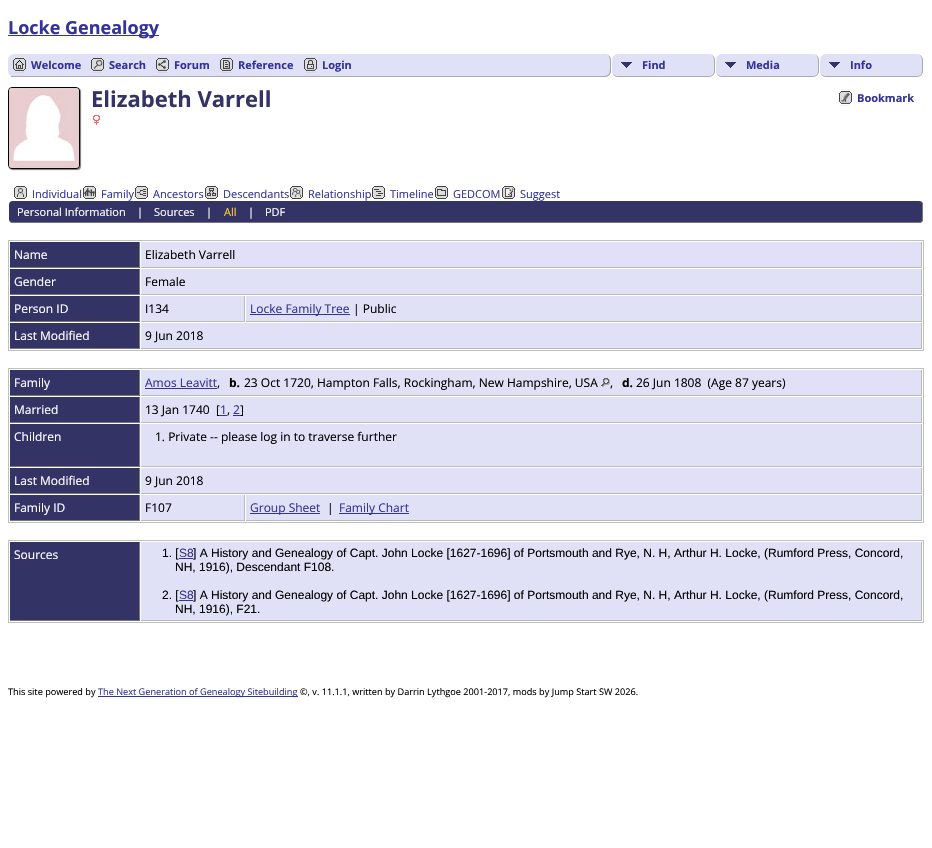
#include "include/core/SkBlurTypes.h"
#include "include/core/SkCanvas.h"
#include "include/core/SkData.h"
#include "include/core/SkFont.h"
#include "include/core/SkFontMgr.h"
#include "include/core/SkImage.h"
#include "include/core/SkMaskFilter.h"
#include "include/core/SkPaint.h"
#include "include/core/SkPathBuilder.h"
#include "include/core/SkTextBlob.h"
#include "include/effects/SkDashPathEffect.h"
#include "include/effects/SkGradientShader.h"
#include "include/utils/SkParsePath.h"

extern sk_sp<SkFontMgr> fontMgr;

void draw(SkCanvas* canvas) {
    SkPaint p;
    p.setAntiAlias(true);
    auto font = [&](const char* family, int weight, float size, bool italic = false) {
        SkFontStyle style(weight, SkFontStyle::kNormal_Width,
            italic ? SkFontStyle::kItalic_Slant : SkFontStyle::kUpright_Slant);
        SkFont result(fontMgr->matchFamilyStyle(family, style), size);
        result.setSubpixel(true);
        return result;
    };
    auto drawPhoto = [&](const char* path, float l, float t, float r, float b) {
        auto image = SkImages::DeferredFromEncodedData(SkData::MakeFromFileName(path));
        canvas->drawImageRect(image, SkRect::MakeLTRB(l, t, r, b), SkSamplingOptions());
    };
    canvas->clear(0xFFFFFFFF);
    p.setColor(0xFF333399);
    canvas->drawRect(SkRect::MakeLTRB(8, 35, 159, 36), p);
    auto font1 = font("Open Sans", 700, 18);
    canvas->drawString("Locke Genealogy", 8, 34, font1, p);
    p.setColor(0xFFE0E0F7);
    canvas->drawRoundRect(SkRect::MakeLTRB(8, 54, 924, 77), 6, 6, p);
    p.setColor(0xFFAAAAAA);
    canvas->drawRect(SkRect::MakeLTRB(11, 76, 600, 77), p);
    drawPhoto("media/1.png", 13, 58, 26, 73);
    auto font2 = font("Open Sans", 700, 11);
    p.setColor(0xFF333399);
    canvas->drawString("Welcome", 31, 69, font2, p);
    drawPhoto("media/2.png", 91, 58, 104, 73);
    canvas->drawString("Search", 109, 69, font2, p);
    drawPhoto("media/3.png", 156, 58, 169, 73);
    canvas->drawString("Forum", 174, 69, font2, p);
    drawPhoto("media/4.png", 220, 58, 233, 73);
    canvas->drawString("Reference", 238, 69, font2, p);
    drawPhoto("media/5.png", 304, 58, 317, 73);
    canvas->drawString("Login", 322, 69, font2, p);
    p.setColor(0xFFFFFFFF);
    canvas->drawRect(SkRect::MakeLTRB(605, 54, 924, 77), p);
    p.setColor(0xFFE0E0F7);
    canvas->drawPath(SkPathBuilder().moveTo(600, 54).lineTo(605, 54).cubicTo(608.5f, 54, 611, 56.5f, 611, 60).lineTo(611, 71).cubicTo(611, 74.5f, 608.5f, 77, 605, 77).lineTo(600, 77).close().detach(), p);
    p.setColor(0xFFAAAAAA);
    canvas->drawPath(SkPathBuilder(SkPathFillType::kEvenOdd).moveTo(600, 54).cubicTo(604, 54, 610, 53.5f, 611, 59).lineTo(611, 72).cubicTo(610, 77.5f, 604, 77, 600, 77).close().moveTo(600, 54).lineTo(606, 54).cubicTo(611, 55.5f, 610, 62, 610, 65.5f).cubicTo(610, 75.5f, 609.5f, 76, 600, 76).close().detach(), p);
    p.setColor(0xFFE0E0F7);
    canvas->drawRoundRect(SkRect::MakeLTRB(612, 54, 715, 77), 6, 6, p);
    drawPhoto("media/6.png", 621, 62, 632, 68);
    p.setColor(0xFFAAAAAA);
    canvas->drawPath(SkPathBuilder(SkPathFillType::kEvenOdd).moveTo(618, 54).lineTo(709, 54).cubicTo(712, 54, 715, 57, 715, 60).lineTo(715, 71).cubicTo(715, 74, 712, 77, 709, 77).lineTo(618, 77).cubicTo(615, 77, 612, 74, 612, 71).lineTo(612, 60).cubicTo(612, 57, 615, 54, 618, 54).close().moveTo(618, 54).lineTo(709, 54).cubicTo(712, 54, 714, 57, 714, 60).lineTo(714, 71).cubicTo(714, 74, 712, 76, 709, 76).lineTo(618, 76).cubicTo(615, 76, 612, 74, 612, 71).lineTo(612, 60).cubicTo(612, 57, 615, 54, 618, 54).close().detach(), p);
    p.setColor(0xFF333399);
    canvas->drawString("Find", 642, 69, font2, p);
    p.setColor(0xFFE0E0F7);
    canvas->drawRoundRect(SkRect::MakeLTRB(716, 54, 819, 77), 6, 6, p);
    drawPhoto("media/6.png", 725, 62, 736, 68);
    p.setColor(0xFFAAAAAA);
    canvas->drawPath(SkPathBuilder(SkPathFillType::kEvenOdd).moveTo(722, 54).lineTo(813, 54).cubicTo(816, 54, 819, 57, 819, 60).lineTo(819, 71).cubicTo(819, 74, 816, 77, 813, 77).lineTo(722, 77).cubicTo(719, 77, 716, 74, 716, 71).lineTo(716, 60).cubicTo(716, 57, 719, 54, 722, 54).close().moveTo(722, 54).lineTo(813, 54).cubicTo(816, 54, 818, 57, 818, 60).lineTo(818, 71).cubicTo(818, 74, 816, 76, 813, 76).lineTo(722, 76).cubicTo(719, 76, 716, 74, 716, 71).lineTo(716, 60).cubicTo(716, 57, 719, 54, 722, 54).close().detach(), p);
    p.setColor(0xFF333399);
    canvas->drawString("Media", 746, 69, font2, p);
    p.setColor(0xFFE0E0F7);
    canvas->drawRoundRect(SkRect::MakeLTRB(820, 54, 923, 77), 6, 6, p);
    drawPhoto("media/6.png", 829, 62, 840, 68);
    p.setColor(0xFFAAAAAA);
    canvas->drawPath(SkPathBuilder(SkPathFillType::kEvenOdd).moveTo(826, 54).lineTo(917, 54).cubicTo(920, 54, 923, 57, 923, 60).lineTo(923, 71).cubicTo(923, 74, 920, 77, 917, 77).lineTo(826, 77).cubicTo(823, 77, 820, 74, 820, 71).lineTo(820, 60).cubicTo(820, 57, 823, 54, 826, 54).close().moveTo(826, 54).lineTo(917, 54).cubicTo(920, 54, 922, 57, 922, 60).lineTo(922, 71).cubicTo(922, 74, 920, 76, 917, 76).lineTo(826, 76).cubicTo(823, 76, 820, 74, 820, 71).lineTo(820, 60).cubicTo(820, 57, 823, 54, 826, 54).close().detach(), p);
    p.setColor(0xFF333399);
    canvas->drawString("Info", 850, 69, font2, p);
    p.setColor(0xFF777777);
    p.setMaskFilter(SkMaskFilter::MakeBlur(kNormal_SkBlurStyle, 0.5f));
    canvas->drawRoundRect(SkRect::MakeLTRB(9, 88, 81, 170), 4, 4, p);
    p.setMaskFilter(nullptr);
    p.setStyle(SkPaint::kStroke_Style);
    p.setStrokeWidth(1);
    p.setColor(0xFF000000);
    canvas->drawRoundRect(SkRect::MakeLTRB(8.5f, 87.5f, 79.5f, 168.5f), 3.5f, 3.5f, p);
    drawPhoto("media/7.png", 9, 88, 79, 168);
    auto font3 = font("Open Sans", 700, 22);
    p.setStyle(SkPaint::kFill_Style);
    p.setColor(0xFF333366);
    canvas->drawString("Elizabeth Varrell", 91, 107, font3, p);
    drawPhoto("media/8.png", 93, 115, 100, 125);
    drawPhoto("media/9.png", 14, 186, 27, 199);
    auto font4 = font("Open Sans", 400, 11);
    p.setColor(0xFF333399);
    canvas->drawString("Individual", 32, 198, font4, p);
    drawPhoto("media/10.png", 83, 186, 96, 199);
    canvas->drawString("Family", 101, 198, font4, p);
    drawPhoto("media/11.png", 135, 186, 148, 199);
    canvas->drawString("Ancestors", 153, 198, font4, p);
    drawPhoto("media/12.png", 205, 186, 218, 199);
    canvas->drawString("Descendants", 223, 198, font4, p);
    drawPhoto("media/13.png", 290, 186, 303, 199);
    canvas->drawString("Relationship", 308, 198, font4, p);
    drawPhoto("media/14.png", 372, 186, 385, 199);
    canvas->drawString("Timeline", 390, 198, font4, p);
    drawPhoto("media/15.png", 435, 186, 448, 199);
    canvas->drawString("GEDCOM", 453, 198, font4, p);
    drawPhoto("media/16.png", 502, 186, 515, 199);
    canvas->drawString("Suggest", 520, 198, font4, p);
    p.setColor(0xFF333366);
    canvas->drawRoundRect(SkRect::MakeLTRB(9, 201, 923, 223), 4, 4, p);
    p.setColor(0xFF777777);
    canvas->drawPath(SkPathBuilder(SkPathFillType::kEvenOdd).moveTo(13, 201).lineTo(919, 201).cubicTo(921, 201, 923, 203, 923, 205).lineTo(923, 219).cubicTo(923, 221, 921, 223, 919, 223).lineTo(13, 223).cubicTo(11, 223, 9, 221, 9, 219).lineTo(9, 205).cubicTo(9, 203, 11, 201, 13, 201).close().moveTo(13, 201).lineTo(919, 201).cubicTo(921, 201, 922, 203, 922, 205).lineTo(922, 219).cubicTo(922, 221, 921, 222, 919, 222).lineTo(13, 222).cubicTo(11, 222, 9, 221, 9, 219).lineTo(9, 205).cubicTo(9, 203, 11, 201, 13, 201).close().detach(), p);
    p.setColor(0xFFFFFFFF);
    {
        const struct { const char* s; float x, y; } items[] = {
            {"Personal Information", 17, 216},
            {"|", 137, 216},
            {"Sources", 154, 216},
            {"|", 206, 216},
        };
        for (auto [s, x, y] : items) {
            canvas->drawString(s, x, y, font4, p);
        }
    }
    p.setColor(0xFFFFCC33);
    canvas->drawString("All", 224, 216, font4, p);
    p.setColor(0xFFFFFFFF);
    canvas->drawString("|", 248, 216, font4, p);
    canvas->drawString("PDF", 265, 216, font4, p);
    p.setStyle(SkPaint::kStroke_Style);
    p.setColor(0xFFC0C0C0);
    canvas->drawRect(SkRect::MakeLTRB(8.5f, 240.5f, 923.5f, 350.5f), p);
    p.setStyle(SkPaint::kFill_Style);
    {
        const struct { float l, t, r, b; SkColor color; } items[] = {
            {10, 242, 139, 267, 0xFF333366},
            {139, 242, 140, 268, 0xFF777777},
            {10, 267, 140, 268, 0xFF777777},
        };
        for (auto [l, t, r, b, color] : items) {
            p.setColor(color);
            canvas->drawRect(SkRect::MakeLTRB(l, t, r, b), p);
        }
    }
    auto font5 = font("Open Sans", 400, 12);
    p.setColor(0xFFFFFFFF);
    canvas->drawString("Name", 14, 259, font5, p);
    {
        const struct { float l, t, r, b; SkColor color; } items[] = {
            {141, 242, 921, 267, 0xFFE0E0F7},
            {921, 242, 922, 268, 0xFFBBBBBB},
            {141, 267, 922, 268, 0xFFBBBBBB},
        };
        for (auto [l, t, r, b, color] : items) {
            p.setColor(color);
            canvas->drawRect(SkRect::MakeLTRB(l, t, r, b), p);
        }
    }
    p.setColor(0xFF000000);
    canvas->drawString("Elizabeth Varrell", 145, 259, font5, p);
    {
        const struct { float l, t, r, b; SkColor color; } items[] = {
            {10, 269, 139, 294, 0xFF333366},
            {139, 269, 140, 295, 0xFF777777},
            {10, 294, 140, 295, 0xFF777777},
        };
        for (auto [l, t, r, b, color] : items) {
            p.setColor(color);
            canvas->drawRect(SkRect::MakeLTRB(l, t, r, b), p);
        }
    }
    p.setColor(0xFFFFFFFF);
    canvas->drawString("Gender", 14, 286, font5, p);
    {
        const struct { float l, t, r, b; SkColor color; } items[] = {
            {141, 269, 921, 294, 0xFFE0E0F7},
            {921, 269, 922, 295, 0xFFBBBBBB},
            {141, 294, 922, 295, 0xFFBBBBBB},
        };
        for (auto [l, t, r, b, color] : items) {
            p.setColor(color);
            canvas->drawRect(SkRect::MakeLTRB(l, t, r, b), p);
        }
    }
    p.setColor(0xFF000000);
    canvas->drawString("Female", 145, 286, font5, p);
    {
        const struct { float l, t, r, b; SkColor color; } items[] = {
            {10, 296, 139, 321, 0xFF333366},
            {139, 296, 140, 322, 0xFF777777},
            {10, 321, 140, 322, 0xFF777777},
        };
        for (auto [l, t, r, b, color] : items) {
            p.setColor(color);
            canvas->drawRect(SkRect::MakeLTRB(l, t, r, b), p);
        }
    }
    p.setColor(0xFFFFFFFF);
    canvas->drawString("Person ID", 14, 313, font5, p);
    {
        const struct { float l, t, r, b; SkColor color; } items[] = {
            {141, 296, 244, 321, 0xFFE0E0F7},
            {244, 296, 245, 322, 0xFFBBBBBB},
            {141, 321, 245, 322, 0xFFBBBBBB},
        };
        for (auto [l, t, r, b, color] : items) {
            p.setColor(color);
            canvas->drawRect(SkRect::MakeLTRB(l, t, r, b), p);
        }
    }
    p.setColor(0xFF000000);
    canvas->drawString("I134", 145, 313, font5, p);
    {
        const struct { float l, t, r, b; SkColor color; } items[] = {
            {246, 296, 921, 321, 0xFFE0E0F7},
            {921, 296, 922, 322, 0xFFBBBBBB},
            {246, 321, 922, 322, 0xFFBBBBBB},
            {250, 314, 350, 315, 0xFF333399},
        };
        for (auto [l, t, r, b, color] : items) {
            p.setColor(color);
            canvas->drawRect(SkRect::MakeLTRB(l, t, r, b), p);
        }
    }
    canvas->drawString("Locke Family Tree", 250, 313, font5, p);
    p.setColor(0xFF000000);
    canvas->drawString("| Public", 353, 313, font5, p);
    {
        const struct { float l, t, r, b; SkColor color; } items[] = {
            {10, 323, 139, 348, 0xFF333366},
            {139, 323, 140, 349, 0xFF777777},
            {10, 348, 140, 349, 0xFF777777},
        };
        for (auto [l, t, r, b, color] : items) {
            p.setColor(color);
            canvas->drawRect(SkRect::MakeLTRB(l, t, r, b), p);
        }
    }
    p.setColor(0xFFFFFFFF);
    canvas->drawString("Last Modified", 14, 340, font5, p);
    {
        const struct { float l, t, r, b; SkColor color; } items[] = {
            {141, 323, 921, 348, 0xFFE0E0F7},
            {921, 323, 922, 349, 0xFFBBBBBB},
            {141, 348, 922, 349, 0xFFBBBBBB},
        };
        for (auto [l, t, r, b, color] : items) {
            p.setColor(color);
            canvas->drawRect(SkRect::MakeLTRB(l, t, r, b), p);
        }
    }
    p.setColor(0xFF000000);
    canvas->drawString("9 Jun 2018", 145, 340, font5, p);
    p.setStyle(SkPaint::kStroke_Style);
    p.setColor(0xFFC0C0C0);
    canvas->drawRect(SkRect::MakeLTRB(8.5f, 368.5f, 923.5f, 522.5f), p);
    p.setStyle(SkPaint::kFill_Style);
    {
        const struct { float l, t, r, b; SkColor color; } items[] = {
            {10, 370, 139, 395, 0xFF333366},
            {139, 370, 140, 396, 0xFF777777},
            {10, 395, 140, 396, 0xFF777777},
        };
        for (auto [l, t, r, b, color] : items) {
            p.setColor(color);
            canvas->drawRect(SkRect::MakeLTRB(l, t, r, b), p);
        }
    }
    p.setColor(0xFFFFFFFF);
    canvas->drawString("Family", 14, 387, font5, p);
    {
        const struct { float l, t, r, b; SkColor color; } items[] = {
            {141, 370, 921, 395, 0xFFE0E0F7},
            {921, 370, 922, 396, 0xFFBBBBBB},
            {141, 395, 922, 396, 0xFFBBBBBB},
        };
        for (auto [l, t, r, b, color] : items) {
            p.setColor(color);
            canvas->drawRect(SkRect::MakeLTRB(l, t, r, b), p);
        }
    }
    p.setColor(0xFF333399);
    canvas->drawString("Amos Leavitt", 145, 387, font5, p);
    canvas->drawRect(SkRect::MakeLTRB(145, 388, 217, 389), p);
    p.setColor(0xFF000000);
    canvas->drawString(",", 217, 387, font5, p);
    auto font6 = font("Open Sans", 700, 12);
    canvas->drawString("b.", 229, 387, font6, p);
    canvas->drawString("23 Oct 1720, Hampton Falls, Rockingham, New Hampshire, USA", 244, 387, font5, p);
    drawPhoto("media/17.png", 601, 378, 610, 387);
    canvas->drawString(",", 610, 387, font5, p);
    canvas->drawString("d.", 622, 387, font6, p);
    canvas->drawString("26 Jun 1808  (Age 87 years)", 636, 387, font5, p);
    {
        const struct { float l, t, r, b; SkColor color; } items[] = {
            {10, 397, 139, 422, 0xFF333366},
            {139, 397, 140, 423, 0xFF777777},
            {10, 422, 140, 423, 0xFF777777},
        };
        for (auto [l, t, r, b, color] : items) {
            p.setColor(color);
            canvas->drawRect(SkRect::MakeLTRB(l, t, r, b), p);
        }
    }
    p.setColor(0xFFFFFFFF);
    canvas->drawString("Married", 14, 414, font5, p);
    {
        const struct { float l, t, r, b; SkColor color; } items[] = {
            {141, 397, 921, 422, 0xFFE0E0F7},
            {921, 397, 922, 423, 0xFFBBBBBB},
            {141, 422, 922, 423, 0xFFBBBBBB},
        };
        for (auto [l, t, r, b, color] : items) {
            p.setColor(color);
            canvas->drawRect(SkRect::MakeLTRB(l, t, r, b), p);
        }
    }
    p.setColor(0xFF000000);
    canvas->drawString("13 Jan 1740  [", 145, 414, font5, p);
    p.setColor(0xFF333399);
    canvas->drawString("1", 220, 414, font5, p);
    canvas->drawRect(SkRect::MakeLTRB(220, 415, 227, 416), p);
    p.setColor(0xFF000000);
    canvas->drawString(",", 227, 414, font5, p);
    p.setColor(0xFF333399);
    canvas->drawString("2", 233, 414, font5, p);
    canvas->drawRect(SkRect::MakeLTRB(233, 415, 240, 416), p);
    p.setColor(0xFF000000);
    canvas->drawString("]", 240, 414, font5, p);
    {
        const struct { float l, t, r, b; SkColor color; } items[] = {
            {10, 424, 139, 466, 0xFF333366},
            {139, 424, 140, 467, 0xFF777777},
            {10, 466, 140, 467, 0xFF777777},
        };
        for (auto [l, t, r, b, color] : items) {
            p.setColor(color);
            canvas->drawRect(SkRect::MakeLTRB(l, t, r, b), p);
        }
    }
    p.setColor(0xFFFFFFFF);
    canvas->drawString("Children", 14, 441, font5, p);
    {
        const struct { float l, t, r, b; SkColor color; } items[] = {
            {141, 424, 921, 466, 0xFFE0E0F7},
            {921, 424, 922, 467, 0xFFBBBBBB},
            {141, 466, 922, 467, 0xFFBBBBBB},
        };
        for (auto [l, t, r, b, color] : items) {
            p.setColor(color);
            canvas->drawRect(SkRect::MakeLTRB(l, t, r, b), p);
        }
    }
    p.setColor(0xFF000000);
    canvas->drawString("1. Private -- please log in to traverse further", 155, 441, font5, p);
    {
        const struct { float l, t, r, b; SkColor color; } items[] = {
            {10, 468, 139, 493, 0xFF333366},
            {139, 468, 140, 494, 0xFF777777},
            {10, 493, 140, 494, 0xFF777777},
        };
        for (auto [l, t, r, b, color] : items) {
            p.setColor(color);
            canvas->drawRect(SkRect::MakeLTRB(l, t, r, b), p);
        }
    }
    p.setColor(0xFFFFFFFF);
    canvas->drawString("Last Modified", 14, 485, font5, p);
    {
        const struct { float l, t, r, b; SkColor color; } items[] = {
            {141, 468, 921, 493, 0xFFE0E0F7},
            {921, 468, 922, 494, 0xFFBBBBBB},
            {141, 493, 922, 494, 0xFFBBBBBB},
        };
        for (auto [l, t, r, b, color] : items) {
            p.setColor(color);
            canvas->drawRect(SkRect::MakeLTRB(l, t, r, b), p);
        }
    }
    p.setColor(0xFF000000);
    canvas->drawString("9 Jun 2018", 145, 485, font5, p);
    {
        const struct { float l, t, r, b; SkColor color; } items[] = {
            {10, 495, 139, 520, 0xFF333366},
            {139, 495, 140, 521, 0xFF777777},
            {10, 520, 140, 521, 0xFF777777},
        };
        for (auto [l, t, r, b, color] : items) {
            p.setColor(color);
            canvas->drawRect(SkRect::MakeLTRB(l, t, r, b), p);
        }
    }
    p.setColor(0xFFFFFFFF);
    canvas->drawString("Family ID", 14, 512, font5, p);
    {
        const struct { float l, t, r, b; SkColor color; } items[] = {
            {141, 495, 244, 520, 0xFFE0E0F7},
            {244, 495, 245, 521, 0xFFBBBBBB},
            {141, 520, 245, 521, 0xFFBBBBBB},
        };
        for (auto [l, t, r, b, color] : items) {
            p.setColor(color);
            canvas->drawRect(SkRect::MakeLTRB(l, t, r, b), p);
        }
    }
    p.setColor(0xFF000000);
    canvas->drawString("F107", 145, 512, font5, p);
    {
        const struct { float l, t, r, b; SkColor color; } items[] = {
            {246, 495, 921, 520, 0xFFE0E0F7},
            {921, 495, 922, 521, 0xFFBBBBBB},
            {246, 520, 922, 521, 0xFFBBBBBB},
            {250, 513, 320, 514, 0xFF333399},
        };
        for (auto [l, t, r, b, color] : items) {
            p.setColor(color);
            canvas->drawRect(SkRect::MakeLTRB(l, t, r, b), p);
        }
    }
    canvas->drawString("Group Sheet", 250, 512, font5, p);
    p.setColor(0xFF000000);
    canvas->drawString("|", 327, 512, font5, p);
    p.setColor(0xFF333399);
    canvas->drawRect(SkRect::MakeLTRB(339, 513, 409, 514), p);
    canvas->drawString("Family Chart", 339, 512, font5, p);
    p.setStyle(SkPaint::kStroke_Style);
    p.setColor(0xFFC0C0C0);
    canvas->drawRect(SkRect::MakeLTRB(8.5f, 540.5f, 923.5f, 622.5f), p);
    p.setStyle(SkPaint::kFill_Style);
    {
        const struct { float l, t, r, b; SkColor color; } items[] = {
            {10, 542, 139, 620, 0xFF333366},
            {139, 542, 140, 621, 0xFF777777},
            {10, 620, 140, 621, 0xFF777777},
        };
        for (auto [l, t, r, b, color] : items) {
            p.setColor(color);
            canvas->drawRect(SkRect::MakeLTRB(l, t, r, b), p);
        }
    }
    p.setColor(0xFFFFFFFF);
    canvas->drawString("Sources", 14, 559, font5, p);
    {
        const struct { float l, t, r, b; SkColor color; } items[] = {
            {141, 542, 921, 620, 0xFFE0E0F7},
            {921, 542, 922, 621, 0xFFBBBBBB},
            {141, 620, 922, 621, 0xFFBBBBBB},
        };
        for (auto [l, t, r, b, color] : items) {
            p.setColor(color);
            canvas->drawRect(SkRect::MakeLTRB(l, t, r, b), p);
        }
    }
    auto font7 = font("Liberation Sans", 400, 12);
    p.setColor(0xFF000000);
    canvas->drawString("1. [", 162, 557, font7, p);
    p.setColor(0xFF333399);
    canvas->drawString("S8", 179, 557, font7, p);
    canvas->drawRect(SkRect::MakeLTRB(179, 558, 193, 559), p);
    p.setColor(0xFF000000);
    {
        const struct { const char* s; float x, y; } items[] = {
            {"] A History and Genealogy of Capt. John Locke [1627-1696] of Portsmouth and Rye, N. H, Arthur H. Locke, (Rumford Press, Concord,", 193, 557},
            {"NH, 1916), Descendant F108.", 175, 571},
            {"2. [", 162, 599},
        };
        for (auto [s, x, y] : items) {
            canvas->drawString(s, x, y, font7, p);
        }
    }
    p.setColor(0xFF333399);
    canvas->drawString("S8", 179, 599, font7, p);
    canvas->drawRect(SkRect::MakeLTRB(179, 600, 193, 601), p);
    p.setColor(0xFF000000);
    canvas->drawString("] A History and Genealogy of Capt. John Locke [1627-1696] of Portsmouth and Rye, N. H, Arthur H. Locke, (Rumford Press, Concord,", 193, 599, font7, p);
    canvas->drawString("NH, 1916), F21.", 175, 613, font7, p);
    drawPhoto("media/18.png", 839, 91, 852, 106);
    p.setColor(0xFF333399);
    canvas->drawString("Bookmark", 857, 102, font2, p);
    auto font8 = font("Open Sans", 400, 9.15f);
    p.setColor(0xFF000000);
    canvas->drawString("This site powered by", 8, 695, font8, p);
    p.setColor(0xFF333399);
    canvas->drawRect(SkRect::MakeLTRB(98, 696, 298, 697), p);
    canvas->drawString("The Next Generation of Genealogy Sitebuilding", 98, 695, font8, p);
    p.setColor(0xFF000000);
    canvas->drawString("©, v. 11.1.1, written by Darrin Lythgoe 2001-2017, mods by Jump Start SW 2026.", 300, 695, font8, p);
}
